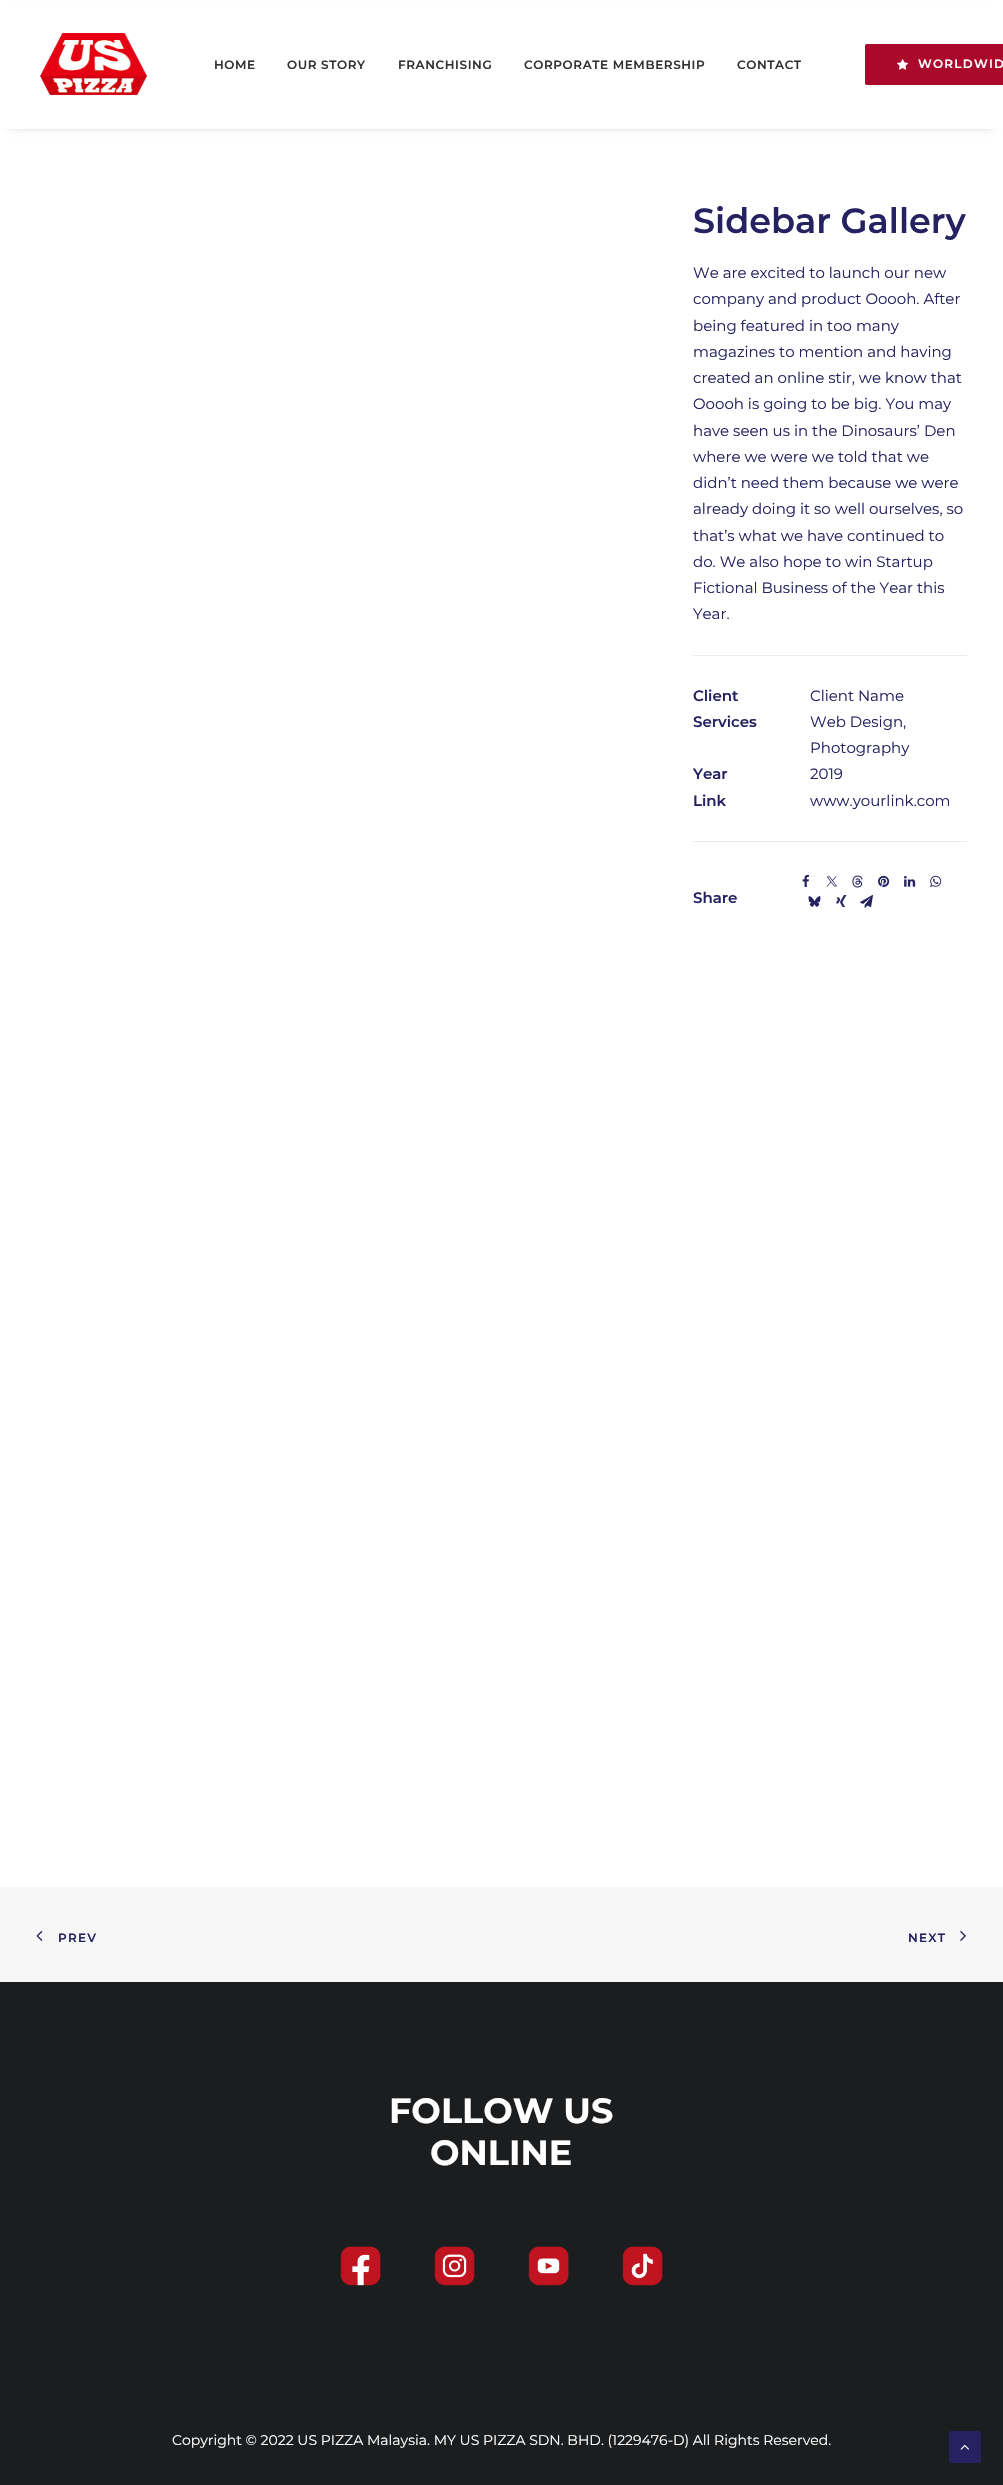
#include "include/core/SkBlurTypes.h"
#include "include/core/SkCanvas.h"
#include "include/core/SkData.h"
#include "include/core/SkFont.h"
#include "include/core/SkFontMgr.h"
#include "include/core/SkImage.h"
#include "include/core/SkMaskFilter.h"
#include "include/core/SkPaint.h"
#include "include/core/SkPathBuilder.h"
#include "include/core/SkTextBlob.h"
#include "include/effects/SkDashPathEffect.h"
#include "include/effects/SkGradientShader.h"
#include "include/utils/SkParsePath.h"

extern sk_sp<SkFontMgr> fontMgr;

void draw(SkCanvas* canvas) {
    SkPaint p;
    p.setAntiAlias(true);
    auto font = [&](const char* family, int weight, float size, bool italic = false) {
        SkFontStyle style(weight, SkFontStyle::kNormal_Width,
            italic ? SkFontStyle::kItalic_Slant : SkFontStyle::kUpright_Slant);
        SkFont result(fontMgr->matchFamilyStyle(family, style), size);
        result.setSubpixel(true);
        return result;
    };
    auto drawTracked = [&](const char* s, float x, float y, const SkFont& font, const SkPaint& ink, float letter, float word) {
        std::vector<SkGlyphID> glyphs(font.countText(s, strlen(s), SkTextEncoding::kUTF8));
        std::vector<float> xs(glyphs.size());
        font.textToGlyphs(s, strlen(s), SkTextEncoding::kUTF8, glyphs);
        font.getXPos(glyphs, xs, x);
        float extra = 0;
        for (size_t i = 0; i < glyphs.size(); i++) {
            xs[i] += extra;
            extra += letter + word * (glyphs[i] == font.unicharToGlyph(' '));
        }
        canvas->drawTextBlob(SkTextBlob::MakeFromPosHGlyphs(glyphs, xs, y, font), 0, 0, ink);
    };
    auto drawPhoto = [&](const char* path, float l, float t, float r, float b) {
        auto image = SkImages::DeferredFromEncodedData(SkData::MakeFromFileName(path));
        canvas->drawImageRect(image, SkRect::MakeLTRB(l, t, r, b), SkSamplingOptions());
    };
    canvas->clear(0xFFFFFFFF);
    p.setColor(0x99000000);
    p.setMaskFilter(SkMaskFilter::MakeBlur(kNormal_SkBlurStyle, 5));
    canvas->drawRect(SkRect::MakeLTRB(10, 14, 993, 123), p);
    p.setMaskFilter(nullptr);
    p.setColor(0xFFFFFFFF);
    canvas->drawRect(SkRect::MakeLTRB(0, 3, 1003, 129), p);
    drawPhoto("media/1.png", 40, 33, 147, 96);
    auto font1 = font("Montserrat", 600, 12);
    p.setColor(0xFF303133);
    {
        const struct { const char* s; float x, y; } items[] = {
            {"HOME", 214, 69},
            {"OUR STORY", 287, 69},
            {"FRANCHISING", 398, 69},
            {"CORPORATE MEMBERSHIP", 524, 69},
            {"CONTACT", 737, 69},
        };
        for (auto [s, x, y] : items) {
            drawTracked(s, x, y, font1, p, 0.6f, 0);
        }
    }
    p.setColor(0xFFAA092B);
    canvas->drawPath(SkPathBuilder().moveTo(867, 44).lineTo(1003, 44).lineTo(1003, 85).lineTo(867, 85).cubicTo(866, 85, 865, 84, 865, 83).lineTo(865, 46).cubicTo(865, 45, 866, 44, 867, 44).close().detach(), p);
    p.setStyle(SkPaint::kStroke_Style);
    p.setStrokeWidth(1);
    canvas->drawRoundRect(SkRect::MakeLTRB(865.5f, 44.5f, 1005.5f, 84.5f), 1.5f, 1.5f, p);
    drawPhoto("media/2.png", 897, 59, 909, 70);
    p.setStyle(SkPaint::kFill_Style);
    p.setColor(0xFFFFFFFF);
    drawTracked("WORLDWID", 918, 68, font1, p, 1.25f, 0);
    auto font2 = font("Montserrat", 600, 35);
    p.setColor(0xFF262261);
    canvas->drawString("Sidebar Gallery", 693, 233, font2, p);
    auto font3 = font("Montserrat", 400, 15);
    {
        const struct { const char* s; float x, y; } items[] = {
            {"We are excited to launch our new", 693, 278},
            {"company and product Ooooh. After", 693, 304},
            {"being featured in too many", 693, 331},
            {"magazines to mention and having", 693, 357},
            {"created an online stir, we know that", 693, 383},
            {"Ooooh is going to be big. You may", 693, 409},
            {"have seen us in the Dinosaurs’ Den", 693, 436},
            {"where we were we told that we", 693, 462},
            {"didn’t need them because we were", 693, 488},
            {"already doing it so well ourselves, so", 693, 514},
            {"that’s what we have continued to", 693, 541},
            {"do. We also hope to win Startup", 693, 567},
            {"Fictional Business of the Year this", 693, 593},
            {"Year.", 693, 619},
        };
        for (auto [s, x, y] : items) {
            canvas->drawString(s, x, y, font3, p);
        }
    }
    p.setColor(0xFFEAEAEA);
    canvas->drawRect(SkRect::MakeLTRB(693, 655, 967, 656), p);
    auto font4 = font("Montserrat", 600, 15);
    p.setColor(0xFF262261);
    canvas->drawString("Client", 693, 701, font4, p);
    canvas->drawString("Client Name", 810, 701, font3, p);
    canvas->drawString("Services", 693, 727, font4, p);
    canvas->drawString("Web Design,", 810, 727, font3, p);
    canvas->drawString("Photography", 810, 753, font3, p);
    canvas->drawString("Year", 693, 779, font4, p);
    canvas->drawString("2019", 810, 779, font3, p);
    canvas->drawString("Link", 693, 806, font4, p);
    canvas->drawString("www.yourlink.com", 810, 806, font3, p);
    p.setColor(0xFFEAEAEA);
    canvas->drawRect(SkRect::MakeLTRB(693, 841, 967, 842), p);
    p.setColor(0xFF262261);
    canvas->drawString("Share", 693, 903, font4, p);
    drawPhoto("media/3.png", 802, 874, 809, 887);
    drawPhoto("media/4.png", 826, 876, 838, 887);
    drawPhoto("media/5.png", 852, 875, 863, 888);
    drawPhoto("media/6.png", 878, 875, 890, 887);
    drawPhoto("media/7.png", 904, 876, 916, 887);
    drawPhoto("media/8.png", 930, 875, 942, 887);
    drawPhoto("media/9.png", 808, 896, 821, 907);
    drawPhoto("media/10.png", 836, 895, 847, 907);
    drawPhoto("media/11.png", 860, 894, 873, 908);
    p.setColor(0xFFF7F7F7);
    canvas->drawRect(SkRect::MakeLTRB(0, 1887, 1003, 1982), p);
    drawPhoto("media/12.png", 36, 1930, 43, 1941);
    p.setColor(0xFF262261);
    drawTracked("PREV", 58, 1942, font1, p, 1.25f, 0);
    drawTracked("NEXT", 908, 1942, font1, p, 1.25f, 0);
    drawPhoto("media/13.png", 960, 1931, 966, 1941);
    p.setColor(0xFF1B1D1F);
    canvas->drawRect(SkRect::MakeLTRB(0, 1982, 1003, 2485), p);
    auto font5 = font("Montserrat", 700, 35);
    p.setColor(0xFFFFFFFF);
    canvas->drawString("FOLLOW US", 389, 2123, font5, p);
    canvas->drawString("ONLINE", 430, 2165, font5, p);
    drawPhoto("media/14.png", 340, 2246, 381, 2286);
    drawPhoto("media/15.png", 434, 2246, 475, 2286);
    drawPhoto("media/16.png", 528, 2246, 569, 2286);
    drawPhoto("media/17.png", 622, 2246, 663, 2286);
    auto font6 = font("Montserrat", 400, 14);
    canvas->drawString("Copyright © 2022 US PIZZA Malaysia. MY US PIZZA SDN. BHD. (1229476-D) All Rights Reserved.", 172, 2445, font6, p);
    p.setColor(0xFF262261);
    canvas->drawRoundRect(SkRect::MakeLTRB(949.5f, 2431.5f, 980.5f, 2462.5f), 1.5f, 1.5f, p);
    p.setStyle(SkPaint::kStroke_Style);
    canvas->drawRoundRect(SkRect::MakeLTRB(949.5f, 2431.5f, 980.5f, 2462.5f), 1.5f, 1.5f, p);
    drawPhoto("media/18.png", 960, 2444, 969, 2450);
}
